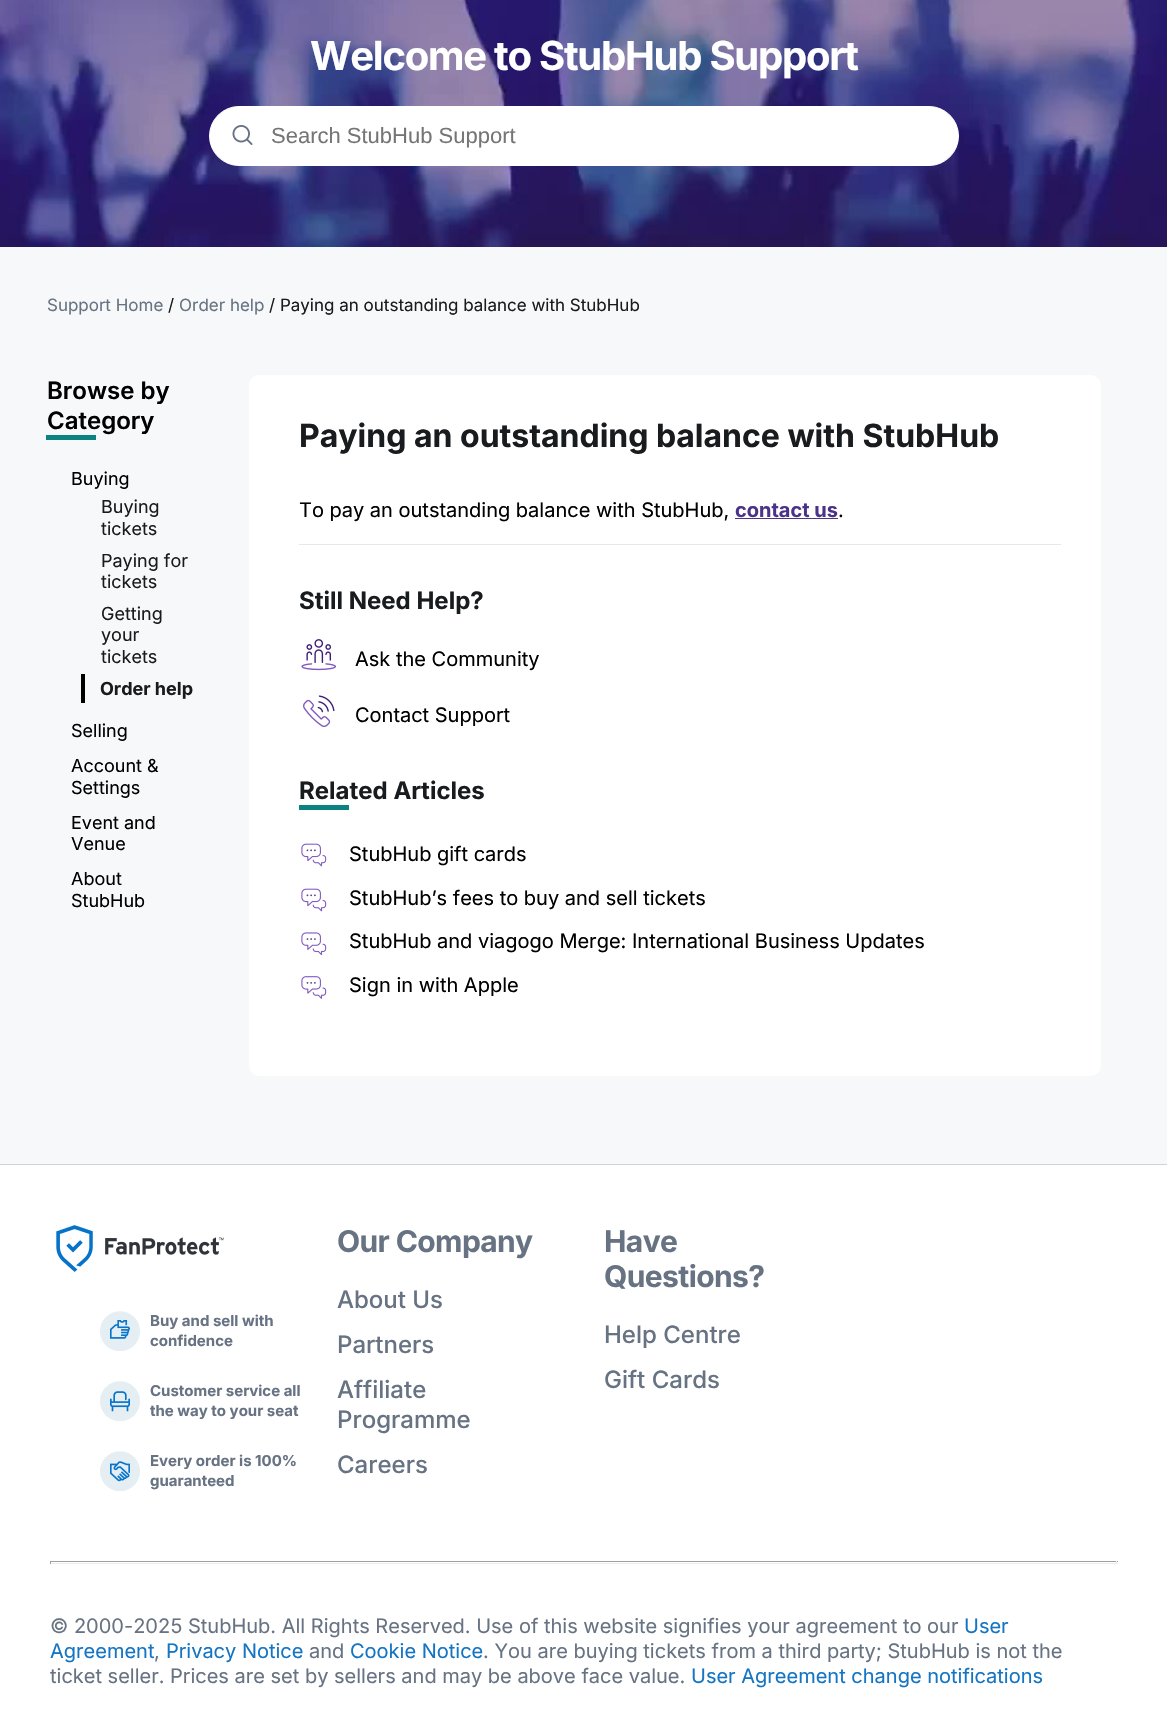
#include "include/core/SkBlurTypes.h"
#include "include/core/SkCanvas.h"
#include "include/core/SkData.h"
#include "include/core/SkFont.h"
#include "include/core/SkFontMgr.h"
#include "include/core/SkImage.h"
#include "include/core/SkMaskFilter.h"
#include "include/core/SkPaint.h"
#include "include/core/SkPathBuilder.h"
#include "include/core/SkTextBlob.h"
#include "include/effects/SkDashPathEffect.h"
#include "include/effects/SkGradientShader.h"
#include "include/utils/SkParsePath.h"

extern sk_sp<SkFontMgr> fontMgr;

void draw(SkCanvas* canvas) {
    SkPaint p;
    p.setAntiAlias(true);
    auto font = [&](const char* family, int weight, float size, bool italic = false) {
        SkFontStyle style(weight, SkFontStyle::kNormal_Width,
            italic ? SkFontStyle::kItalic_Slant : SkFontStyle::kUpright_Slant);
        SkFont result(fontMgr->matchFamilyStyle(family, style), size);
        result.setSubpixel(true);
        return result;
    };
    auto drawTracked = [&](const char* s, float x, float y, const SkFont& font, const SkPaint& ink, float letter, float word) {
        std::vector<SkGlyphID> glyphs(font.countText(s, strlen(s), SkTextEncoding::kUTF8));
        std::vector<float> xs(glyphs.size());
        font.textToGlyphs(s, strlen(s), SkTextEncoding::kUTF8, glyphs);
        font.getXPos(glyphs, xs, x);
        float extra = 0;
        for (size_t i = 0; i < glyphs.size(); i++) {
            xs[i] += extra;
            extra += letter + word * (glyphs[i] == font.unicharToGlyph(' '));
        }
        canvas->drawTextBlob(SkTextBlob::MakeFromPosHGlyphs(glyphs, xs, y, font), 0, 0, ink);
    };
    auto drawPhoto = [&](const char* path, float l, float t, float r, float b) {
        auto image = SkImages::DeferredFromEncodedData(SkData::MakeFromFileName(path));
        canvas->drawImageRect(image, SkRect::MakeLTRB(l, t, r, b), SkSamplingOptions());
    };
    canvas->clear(0xFFF6F8F9);
    drawPhoto("media/1.png", 0, 0, 1167, 247);
    auto font1 = font("Inter", 700, 40);
    p.setColor(0xFFFFFFFF);
    drawTracked("Welcome to StubHub Support", 310, 70, font1, p, -1.25f, 0);
    canvas->drawRoundRect(SkRect::MakeLTRB(209.5f, 106.5f, 958.5f, 165.5f), 29.5f, 29.5f, p);
    p.setStyle(SkPaint::kStroke_Style);
    p.setStrokeWidth(1);
    canvas->drawRoundRect(SkRect::MakeLTRB(209.5f, 106.5f, 958.5f, 165.5f), 29.5f, 29.5f, p);
    drawPhoto("media/2.png", 232, 125, 253, 145);
    auto font2 = font("Liberation Sans", 400, 22);
    p.setStyle(SkPaint::kFill_Style);
    p.setColor(0xFF757575);
    canvas->drawString("Search StubHub Support", 271, 143, font2, p);
    auto font3 = font("Inter", 400, 17);
    p.setColor(0xFF677383);
    canvas->drawString("Support Home", 47, 311, font3, p);
    p.setColor(0xFF191C1F);
    canvas->drawString("/", 168, 311, font3, p);
    p.setColor(0xFF677383);
    canvas->drawString("Order help", 179, 311, font3, p);
    p.setColor(0xFF191C1F);
    canvas->drawString("/ Paying an outstanding balance with StubHub", 269, 311, font3, p);
    auto font4 = font("Inter", 600, 24);
    p.setColor(0xFF000000);
    canvas->drawString("Browse by", 47, 399, font4, p);
    canvas->drawString("Category", 47, 429, font4, p);
    p.setColor(0xFF0D8282);
    canvas->drawRect(SkRect::MakeLTRB(46, 435, 96, 440), p);
    auto font5 = font("Inter", 400, 18);
    p.setColor(0xFF000000);
    canvas->drawString("Buying", 71, 485, font5, p);
    p.setColor(0xFF191C1F);
    {
        const struct { const char* s; float x, y; } items[] = {
            {"Buying", 101, 513},
            {"tickets", 101, 535},
            {"Paying for", 101, 567},
            {"tickets", 101, 588},
            {"Getting", 101, 620},
            {"your", 101, 641},
            {"tickets", 101, 663},
        };
        for (auto [s, x, y] : items) {
            canvas->drawString(s, x, y, font5, p);
        }
    }
    p.setColor(0xFF000000);
    canvas->drawRect(SkRect::MakeLTRB(81, 674, 85, 703), p);
    auto font6 = font("Inter", 700, 18);
    p.setColor(0xFF191C1F);
    canvas->drawString("Order help", 100, 695, font6, p);
    p.setColor(0xFF000000);
    {
        const struct { const char* s; float x, y; } items[] = {
            {"Selling", 71, 737},
            {"Account &", 71, 772},
            {"Settings", 71, 794},
            {"Event and", 71, 829},
            {"Venue", 71, 850},
            {"About", 71, 885},
            {"StubHub", 71, 907},
        };
        for (auto [s, x, y] : items) {
            canvas->drawString(s, x, y, font5, p);
        }
    }
    p.setColor(0xFFFFFFFF);
    canvas->drawRoundRect(SkRect::MakeLTRB(249, 375, 1101, 1076), 10, 10, p);
    p.setColor(0xFFE6E9EB);
    canvas->drawRect(SkRect::MakeLTRB(299, 544, 1061, 545), p);
    auto font7 = font("Inter", 700, 32);
    p.setColor(0xFF191C1F);
    canvas->drawString("Paying an outstanding balance with StubHub", 299, 447, font7, p);
    auto font8 = font("Inter", 400, 20);
    p.setColor(0xFF000000);
    canvas->drawString("To pay an outstanding balance with StubHub,", 299, 517, font8, p);
    auto font9 = font("Inter", 700, 20);
    p.setColor(0xFF4C3389);
    canvas->drawString("contact us", 735, 517, font9, p);
    canvas->drawRect(SkRect::MakeLTRB(735, 518, 838, 519), p);
    p.setColor(0xFF000000);
    canvas->drawString(".", 838, 517, font8, p);
    auto font10 = font("Inter", 700, 24);
    p.setColor(0xFF191C1F);
    canvas->drawString("Still Need Help?", 299, 609, font10, p);
    drawPhoto("media/3.png", 301, 639, 336, 671);
    p.setColor(0xFF000000);
    canvas->drawString("Ask the Community", 355, 666, font8, p);
    drawPhoto("media/4.png", 303, 695, 335, 727);
    canvas->drawString("Contact Support", 355, 722, font8, p);
    p.setColor(0xFF191C1F);
    canvas->drawString("Related Articles", 299, 799, font10, p);
    p.setColor(0xFF0D8282);
    canvas->drawRect(SkRect::MakeLTRB(299, 805, 349, 810), p);
    drawPhoto("media/5.png", 301, 843, 327, 867);
    p.setColor(0xFF000000);
    canvas->drawString("StubHub gift cards", 349, 861, font8, p);
    drawPhoto("media/5.png", 301, 888, 327, 912);
    canvas->drawString("StubHub’s fees to buy and sell tickets", 349, 905, font8, p);
    drawPhoto("media/6.png", 301, 932, 327, 956);
    canvas->drawString("StubHub and viagogo Merge: International Business Updates", 349, 948, font8, p);
    drawPhoto("media/7.png", 301, 976, 327, 999);
    canvas->drawString("Sign in with Apple", 349, 992, font8, p);
    p.setColor(0xFFFFFFFF);
    canvas->drawRect(SkRect::MakeLTRB(0, 1165, 1167, 1735), p);
    p.setColor(0xFFCFD4D9);
    canvas->drawRect(SkRect::MakeLTRB(0, 1164, 1167, 1165), p);
    drawPhoto("media/8.png", 56, 1225, 224, 1272);
    drawPhoto("media/9.png", 100, 1311, 140, 1351);
    auto font11 = font("Inter", 700, 15);
    p.setColor(0xFF677383);
    canvas->drawString("Buy and sell with", 150, 1326, font11, p);
    canvas->drawString("confidence", 150, 1346, font11, p);
    drawPhoto("media/10.png", 100, 1381, 140, 1421);
    canvas->drawString("Customer service all", 150, 1396, font11, p);
    canvas->drawString("the way to your seat", 150, 1416, font11, p);
    drawPhoto("media/11.png", 100, 1451, 140, 1491);
    canvas->drawString("Every order is 100%", 150, 1466, font11, p);
    canvas->drawString("guaranteed", 150, 1486, font11, p);
    auto font12 = font("Inter", 700, 30);
    drawTracked("Our Company", 337, 1252, font12, p, -0.6f, 0);
    auto font13 = font("Inter", 500, 24);
    {
        const struct { const char* s; float x, y; } items[] = {
            {"About Us", 337, 1308},
            {"Partners", 337, 1353},
            {"Affiliate", 337, 1398},
            {"Programme", 337, 1428},
            {"Careers", 337, 1473},
        };
        for (auto [s, x, y] : items) {
            canvas->drawString(s, x, y, font13, p);
        }
    }
    drawTracked("Have", 604, 1252, font12, p, -0.6f, 0);
    drawTracked("Questions?", 604, 1287, font12, p, -0.6f, 0);
    canvas->drawString("Help Centre", 604, 1343, font13, p);
    canvas->drawString("Gift Cards", 604, 1388, font13, p);
    {
        const struct { float l, t, r, b; SkColor color; } items[] = {
            {50, 1561, 1118, 1562, 0xFF9F9F9F},
            {1116, 1561, 1117, 1564, 0xFFEEEEEE},
            {50, 1563, 1118, 1564, 0xFFEEEEEE},
            {50, 1561, 51, 1564, 0xFF9F9F9F},
        };
        for (auto [l, t, r, b, color] : items) {
            p.setColor(color);
            canvas->drawRect(SkRect::MakeLTRB(l, t, r, b), p);
        }
    }
    p.setColor(0xFF677383);
    canvas->drawString("© 2000-2025 StubHub. All Rights Reserved. Use of this website signifies your agreement to our", 50, 1633, font8, p);
    p.setColor(0xFF1475C4);
    canvas->drawString("User", 964, 1633, font8, p);
    canvas->drawString("Agreement", 50, 1658, font8, p);
    p.setColor(0xFF677383);
    canvas->drawString(",", 154, 1658, font8, p);
    p.setColor(0xFF1475C4);
    canvas->drawString("Privacy Notice", 166, 1658, font8, p);
    p.setColor(0xFF677383);
    canvas->drawString("and", 309, 1658, font8, p);
    p.setColor(0xFF1475C4);
    canvas->drawString("Cookie Notice", 350, 1658, font8, p);
    p.setColor(0xFF677383);
    canvas->drawString(". You are buying tickets from a third party; StubHub is not the", 483, 1658, font8, p);
    canvas->drawString("ticket seller. Prices are set by sellers and may be above face value.", 50, 1683, font8, p);
    p.setColor(0xFF1475C4);
    canvas->drawString("User Agreement change notifications", 691, 1683, font8, p);
}
